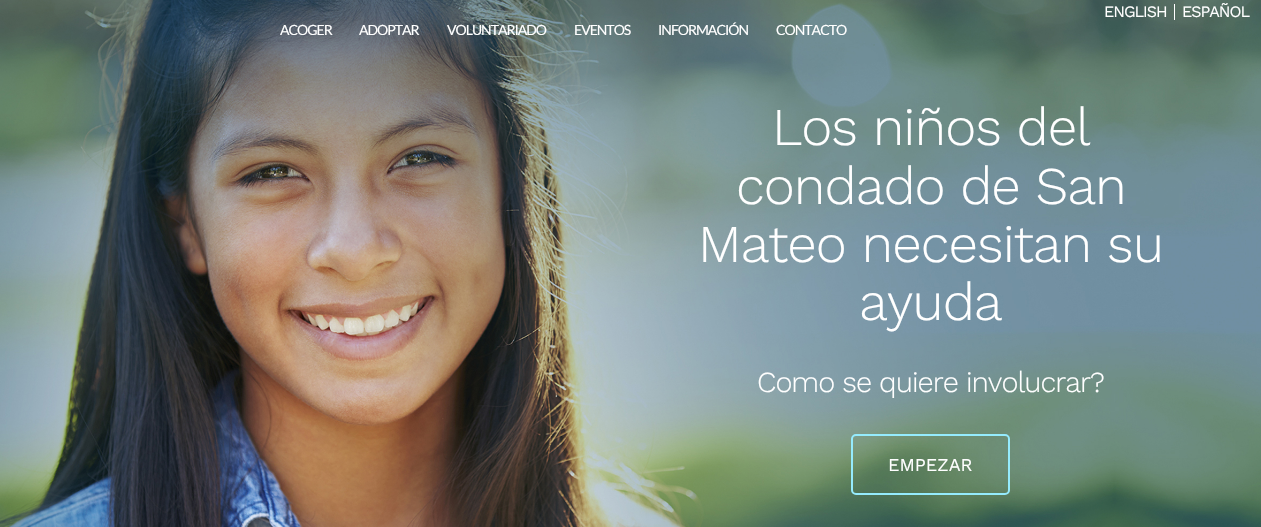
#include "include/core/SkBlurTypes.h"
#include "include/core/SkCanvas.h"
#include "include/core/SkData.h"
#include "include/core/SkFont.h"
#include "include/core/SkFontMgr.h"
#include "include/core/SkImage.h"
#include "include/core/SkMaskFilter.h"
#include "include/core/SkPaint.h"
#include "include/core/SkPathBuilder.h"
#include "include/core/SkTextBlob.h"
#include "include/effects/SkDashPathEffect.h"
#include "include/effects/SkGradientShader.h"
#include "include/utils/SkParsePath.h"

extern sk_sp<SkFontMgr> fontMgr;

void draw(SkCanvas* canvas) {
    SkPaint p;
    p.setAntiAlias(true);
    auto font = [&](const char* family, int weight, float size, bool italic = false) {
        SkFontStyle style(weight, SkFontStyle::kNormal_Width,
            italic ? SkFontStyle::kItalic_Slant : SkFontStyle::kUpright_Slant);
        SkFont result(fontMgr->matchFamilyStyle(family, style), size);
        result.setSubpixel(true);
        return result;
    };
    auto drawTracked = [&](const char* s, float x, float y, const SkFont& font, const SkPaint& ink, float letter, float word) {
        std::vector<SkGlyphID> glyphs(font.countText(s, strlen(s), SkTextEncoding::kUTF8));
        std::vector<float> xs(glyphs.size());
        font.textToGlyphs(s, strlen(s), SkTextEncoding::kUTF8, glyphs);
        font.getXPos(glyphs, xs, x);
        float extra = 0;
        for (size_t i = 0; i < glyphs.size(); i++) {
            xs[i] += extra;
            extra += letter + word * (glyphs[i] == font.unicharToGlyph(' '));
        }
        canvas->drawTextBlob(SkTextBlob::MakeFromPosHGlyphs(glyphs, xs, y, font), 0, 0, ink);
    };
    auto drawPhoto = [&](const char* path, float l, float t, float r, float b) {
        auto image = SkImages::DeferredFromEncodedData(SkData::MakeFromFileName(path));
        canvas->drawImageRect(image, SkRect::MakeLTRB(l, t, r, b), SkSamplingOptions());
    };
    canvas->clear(0xFFFFFFFF);
    drawPhoto("media/1.png", 0, 0, 1261, 527);
    auto font1 = font("Work Sans", 400, 16);
    p.setColor(0xFFFFFFFF);
    drawTracked("ENGLISH", 1104, 17, font1, p, -1, 0);
    canvas->drawRect(SkRect::MakeLTRB(1174, 4, 1175, 20), p);
    drawTracked("ESPAÑOL", 1182, 17, font1, p, -1, 0);
    auto font2 = font("Lato", 400, 14);
    {
        const struct { const char* s; float x, y; } items[] = {
            {"ACOGER", 280, 35},
            {"ADOPTAR", 359, 35},
            {"VOLUNTARIADO", 447, 35},
            {"EVENTOS", 574, 35},
            {"INFORMACIÓN", 658, 35},
            {"CONTACTO", 776, 35},
        };
        for (auto [s, x, y] : items) {
            drawTracked(s, x, y, font2, p, -1, 0);
        }
    }
    auto font3 = font("Work Sans", 300, 53);
    {
        const struct { const char* s; float x, y; } items[] = {
            {"Los niños del", 772, 145},
            {"condado de San", 736, 204},
            {"Mateo necesitan su", 698, 262},
            {"ayuda", 859, 320},
        };
        for (auto [s, x, y] : items) {
            drawTracked(s, x, y, font3, p, -1, 0);
        }
    }
    auto font4 = font("Work Sans", 300, 29);
    drawTracked("Como se quiere involucrar?", 757, 392, font4, p, -1, 0);
    p.setStyle(SkPaint::kStroke_Style);
    p.setStrokeWidth(2);
    p.setColor(0xFF95EBFD);
    canvas->drawRoundRect(SkRect::MakeLTRB(852, 435, 1009, 494), 4, 4, p);
    auto font5 = font("Work Sans", 400, 18);
    p.setStyle(SkPaint::kFill_Style);
    p.setColor(0xFFFFFFFF);
    canvas->drawString("EMPEZAR", 888, 471, font5, p);
}
